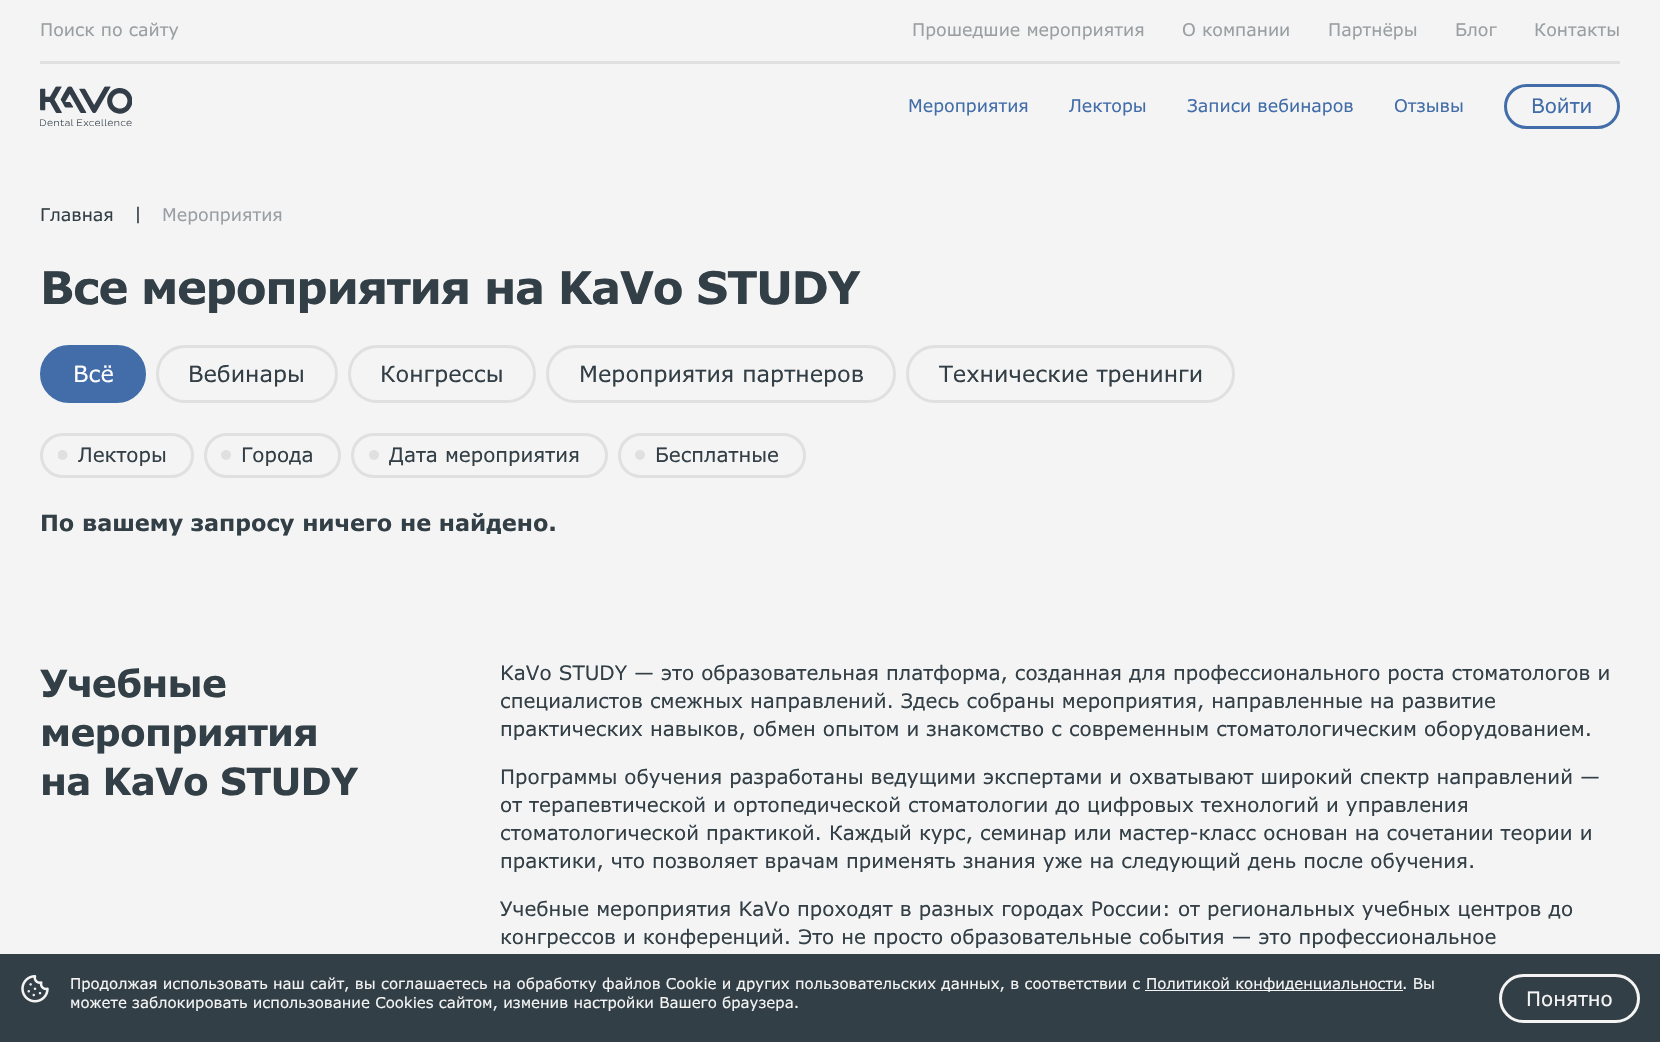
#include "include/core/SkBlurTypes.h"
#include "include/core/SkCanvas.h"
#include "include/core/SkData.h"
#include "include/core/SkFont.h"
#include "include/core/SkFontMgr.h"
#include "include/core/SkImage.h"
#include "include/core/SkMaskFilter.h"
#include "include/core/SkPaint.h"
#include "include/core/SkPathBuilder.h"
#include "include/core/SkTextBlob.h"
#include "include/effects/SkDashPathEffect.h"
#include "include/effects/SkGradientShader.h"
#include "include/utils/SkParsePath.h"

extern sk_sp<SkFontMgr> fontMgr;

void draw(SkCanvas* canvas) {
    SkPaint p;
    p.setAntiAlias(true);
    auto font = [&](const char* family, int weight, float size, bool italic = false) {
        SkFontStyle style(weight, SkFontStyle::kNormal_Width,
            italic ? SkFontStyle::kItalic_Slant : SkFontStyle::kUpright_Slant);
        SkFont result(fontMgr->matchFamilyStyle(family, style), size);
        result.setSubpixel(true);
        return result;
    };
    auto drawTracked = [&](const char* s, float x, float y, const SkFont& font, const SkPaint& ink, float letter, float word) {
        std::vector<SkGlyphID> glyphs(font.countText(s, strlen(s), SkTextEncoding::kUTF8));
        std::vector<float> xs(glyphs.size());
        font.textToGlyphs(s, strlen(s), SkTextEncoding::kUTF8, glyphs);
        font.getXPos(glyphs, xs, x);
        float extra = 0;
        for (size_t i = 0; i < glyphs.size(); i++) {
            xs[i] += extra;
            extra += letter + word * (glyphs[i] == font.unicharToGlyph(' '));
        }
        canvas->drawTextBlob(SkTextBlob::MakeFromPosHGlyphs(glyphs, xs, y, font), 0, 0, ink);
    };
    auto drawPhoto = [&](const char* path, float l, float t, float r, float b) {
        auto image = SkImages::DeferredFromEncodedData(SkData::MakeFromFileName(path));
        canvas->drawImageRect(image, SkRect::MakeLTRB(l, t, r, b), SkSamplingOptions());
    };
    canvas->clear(0xFFF4F4F4);
    p.setColor(0xFFE0E0E1);
    canvas->drawRect(SkRect::MakeLTRB(40, 61, 1620, 64), p);
    auto font1 = font("Verdana", 400, 17.5f);
    p.setColor(0xFF999FA2);
    {
        const struct { const char* s; float x, y; } items[] = {
            {"Поиск по сайту", 40, 36},
            {"Прошедшие мероприятия", 912, 36},
            {"О компании", 1182, 36},
            {"Партнёры", 1328, 36},
            {"Блог", 1455, 36},
            {"Контакты", 1534, 36},
        };
        for (auto [s, x, y] : items) {
            canvas->drawString(s, x, y, font1, p);
        }
    }
    drawPhoto("media/1.png", 40, 86, 132, 126);
    p.setColor(0xFF426DA9);
    {
        const struct { const char* s; float x, y; } items[] = {
            {"Мероприятия", 908, 112},
            {"Лекторы", 1069, 112},
            {"Записи вебинаров", 1187, 112},
            {"Отзывы", 1394, 112},
        };
        for (auto [s, x, y] : items) {
            canvas->drawString(s, x, y, font1, p);
        }
    }
    p.setStyle(SkPaint::kStroke_Style);
    p.setStrokeWidth(3);
    canvas->drawRoundRect(SkRect::MakeLTRB(1505.5f, 85.5f, 1618.5f, 127.5f), 21, 21, p);
    auto font2 = font("Verdana", 400, 20);
    p.setStyle(SkPaint::kFill_Style);
    canvas->drawString("Войти", 1531, 113, font2, p);
    p.setColor(0xFF333F46);
    canvas->drawString("Главная", 40, 221, font1, p);
    canvas->drawString("|", 134, 220, font1, p);
    p.setColor(0xFF999FA2);
    canvas->drawString("Мероприятия", 162, 221, font1, p);
    auto font3 = font("Verdana", 700, 45);
    p.setColor(0xFF333F46);
    drawTracked("Все мероприятия на KaVo STUDY", 40, 304, font3, p, -1.35f, 0);
    p.setColor(0xFF426DA9);
    canvas->drawRoundRect(SkRect::MakeLTRB(41.5f, 346.5f, 144.5f, 401.5f), 27.5f, 27.5f, p);
    p.setStyle(SkPaint::kStroke_Style);
    canvas->drawRoundRect(SkRect::MakeLTRB(41.5f, 346.5f, 144.5f, 401.5f), 27.5f, 27.5f, p);
    auto font4 = font("Verdana", 400, 22.5f);
    p.setStyle(SkPaint::kFill_Style);
    p.setColor(0xFFFFFFFF);
    canvas->drawString("Всё", 73, 382, font4, p);
    p.setStyle(SkPaint::kStroke_Style);
    p.setColor(0xFFE0E0E1);
    canvas->drawRoundRect(SkRect::MakeLTRB(157.5f, 346.5f, 336.5f, 401.5f), 27.5f, 27.5f, p);
    p.setStyle(SkPaint::kFill_Style);
    p.setColor(0xFF333F46);
    canvas->drawString("Вебинары", 188, 382, font4, p);
    p.setStyle(SkPaint::kStroke_Style);
    p.setColor(0xFFE0E0E1);
    canvas->drawRoundRect(SkRect::MakeLTRB(349.5f, 346.5f, 534.5f, 401.5f), 27.5f, 27.5f, p);
    p.setStyle(SkPaint::kFill_Style);
    p.setColor(0xFF333F46);
    canvas->drawString("Конгрессы", 380, 382, font4, p);
    p.setStyle(SkPaint::kStroke_Style);
    p.setColor(0xFFE0E0E1);
    canvas->drawRoundRect(SkRect::MakeLTRB(547.5f, 346.5f, 894.5f, 401.5f), 27.5f, 27.5f, p);
    p.setStyle(SkPaint::kFill_Style);
    p.setColor(0xFF333F46);
    canvas->drawString("Мероприятия партнеров", 579, 382, font4, p);
    p.setStyle(SkPaint::kStroke_Style);
    p.setColor(0xFFE0E0E1);
    canvas->drawRoundRect(SkRect::MakeLTRB(907.5f, 346.5f, 1233.5f, 401.5f), 27.5f, 27.5f, p);
    p.setStyle(SkPaint::kFill_Style);
    p.setColor(0xFF333F46);
    canvas->drawString("Технические тренинги", 939, 382, font4, p);
    p.setStyle(SkPaint::kStroke_Style);
    p.setColor(0xFFE0E0E1);
    canvas->drawRoundRect(SkRect::MakeLTRB(41.5f, 434.5f, 192.5f, 476.5f), 21, 21, p);
    canvas->save();
    canvas->clipRect(SkRect::MakeLTRB(58, 450, 68, 460));
    p.setStyle(SkPaint::kFill_Style);
    canvas->drawCircle(62.5f, 455, 5, p);
    canvas->restore();
    p.setColor(0xFF333F46);
    canvas->drawString("Лекторы", 78, 462, font2, p);
    p.setStyle(SkPaint::kStroke_Style);
    p.setColor(0xFFE0E0E1);
    canvas->drawRoundRect(SkRect::MakeLTRB(205.5f, 434.5f, 339.5f, 476.5f), 21, 21, p);
    p.setStyle(SkPaint::kFill_Style);
    canvas->drawCircle(226, 455, 5, p);
    p.setColor(0xFF333F46);
    canvas->drawString("Города", 241, 462, font2, p);
    p.setStyle(SkPaint::kStroke_Style);
    p.setColor(0xFFE0E0E1);
    canvas->drawRoundRect(SkRect::MakeLTRB(352.5f, 434.5f, 606.5f, 476.5f), 21, 21, p);
    p.setStyle(SkPaint::kFill_Style);
    canvas->drawCircle(374, 455, 5, p);
    p.setColor(0xFF333F46);
    canvas->drawString("Дата мероприятия", 389, 462, font2, p);
    p.setStyle(SkPaint::kStroke_Style);
    p.setColor(0xFFE0E0E1);
    canvas->drawRoundRect(SkRect::MakeLTRB(619.5f, 434.5f, 804.5f, 476.5f), 21, 21, p);
    p.setStyle(SkPaint::kFill_Style);
    canvas->drawCircle(640, 455, 5, p);
    p.setColor(0xFF333F46);
    canvas->drawString("Бесплатные", 655, 462, font2, p);
    auto font5 = font("Verdana", 700, 22.5f);
    canvas->drawString("По вашему запросу ничего не найдено.", 40, 531, font5, p);
    auto font6 = font("Verdana", 700, 37.5f);
    {
        const struct { const char* s; float x, y; } items[] = {
            {"Учебные", 40, 697},
            {"мероприятия", 40, 746},
            {"на KaVo STUDY", 40, 795},
        };
        for (auto [s, x, y] : items) {
            drawTracked(s, x, y, font6, p, -0.75f, 0);
        }
    }
    {
        const struct { const char* s; float x, y; } items[] = {
            {"KaVo STUDY — это образовательная платформа, созданная для профессионального роста стоматологов и", 500, 680},
            {"специалистов смежных направлений. Здесь собраны мероприятия, направленные на развитие", 500, 708},
            {"практических навыков, обмен опытом и знакомство с современным стоматологическим оборудованием.", 500, 736},
            {"Программы обучения разработаны ведущими экспертами и охватывают широкий спектр направлений —", 500, 784},
            {"от терапевтической и ортопедической стоматологии до цифровых технологий и управления", 500, 812},
            {"стоматологической практикой. Каждый курс, семинар или мастер-класс основан на сочетании теории и", 500, 840},
            {"практики, что позволяет врачам применять знания уже на следующий день после обучения.", 500, 868},
            {"Учебные мероприятия KaVo проходят в разных городах России: от региональных учебных центров до", 500, 916},
            {"конгрессов и конференций. Это не просто образовательные события — это профессиональное", 500, 944},
        };
        for (auto [s, x, y] : items) {
            canvas->drawString(s, x, y, font2, p);
        }
    }
    canvas->drawRect(SkRect::MakeLTRB(0, 954, 1660, 1042), p);
    drawPhoto("media/2.png", 21, 975, 49, 1003);
    auto font7 = font("Verdana", 400, 15);
    p.setColor(0xFFF4F4F4);
    canvas->drawString("Продолжая использовать наш сайт, вы соглашаетесь на обработку файлов Сookie и других пользовательских данных, в соответствии с", 70, 989, font7, p);
    canvas->drawRect(SkRect::MakeLTRB(1145, 990, 1403, 991), p);
    {
        const struct { const char* s; float x, y; } items[] = {
            {"Политикой конфиденциальности", 1146, 989},
            {". Вы", 1402, 989},
            {"можете заблокировать использование Cookies сайтом, изменив настройки Вашего браузера.", 70, 1008},
        };
        for (auto [s, x, y] : items) {
            canvas->drawString(s, x, y, font7, p);
        }
    }
    p.setStyle(SkPaint::kStroke_Style);
    canvas->drawRoundRect(SkRect::MakeLTRB(1500.5f, 975.5f, 1638.5f, 1021.5f), 23, 23, p);
    p.setStyle(SkPaint::kFill_Style);
    canvas->drawString("Понятно", 1526, 1006, font2, p);
}
